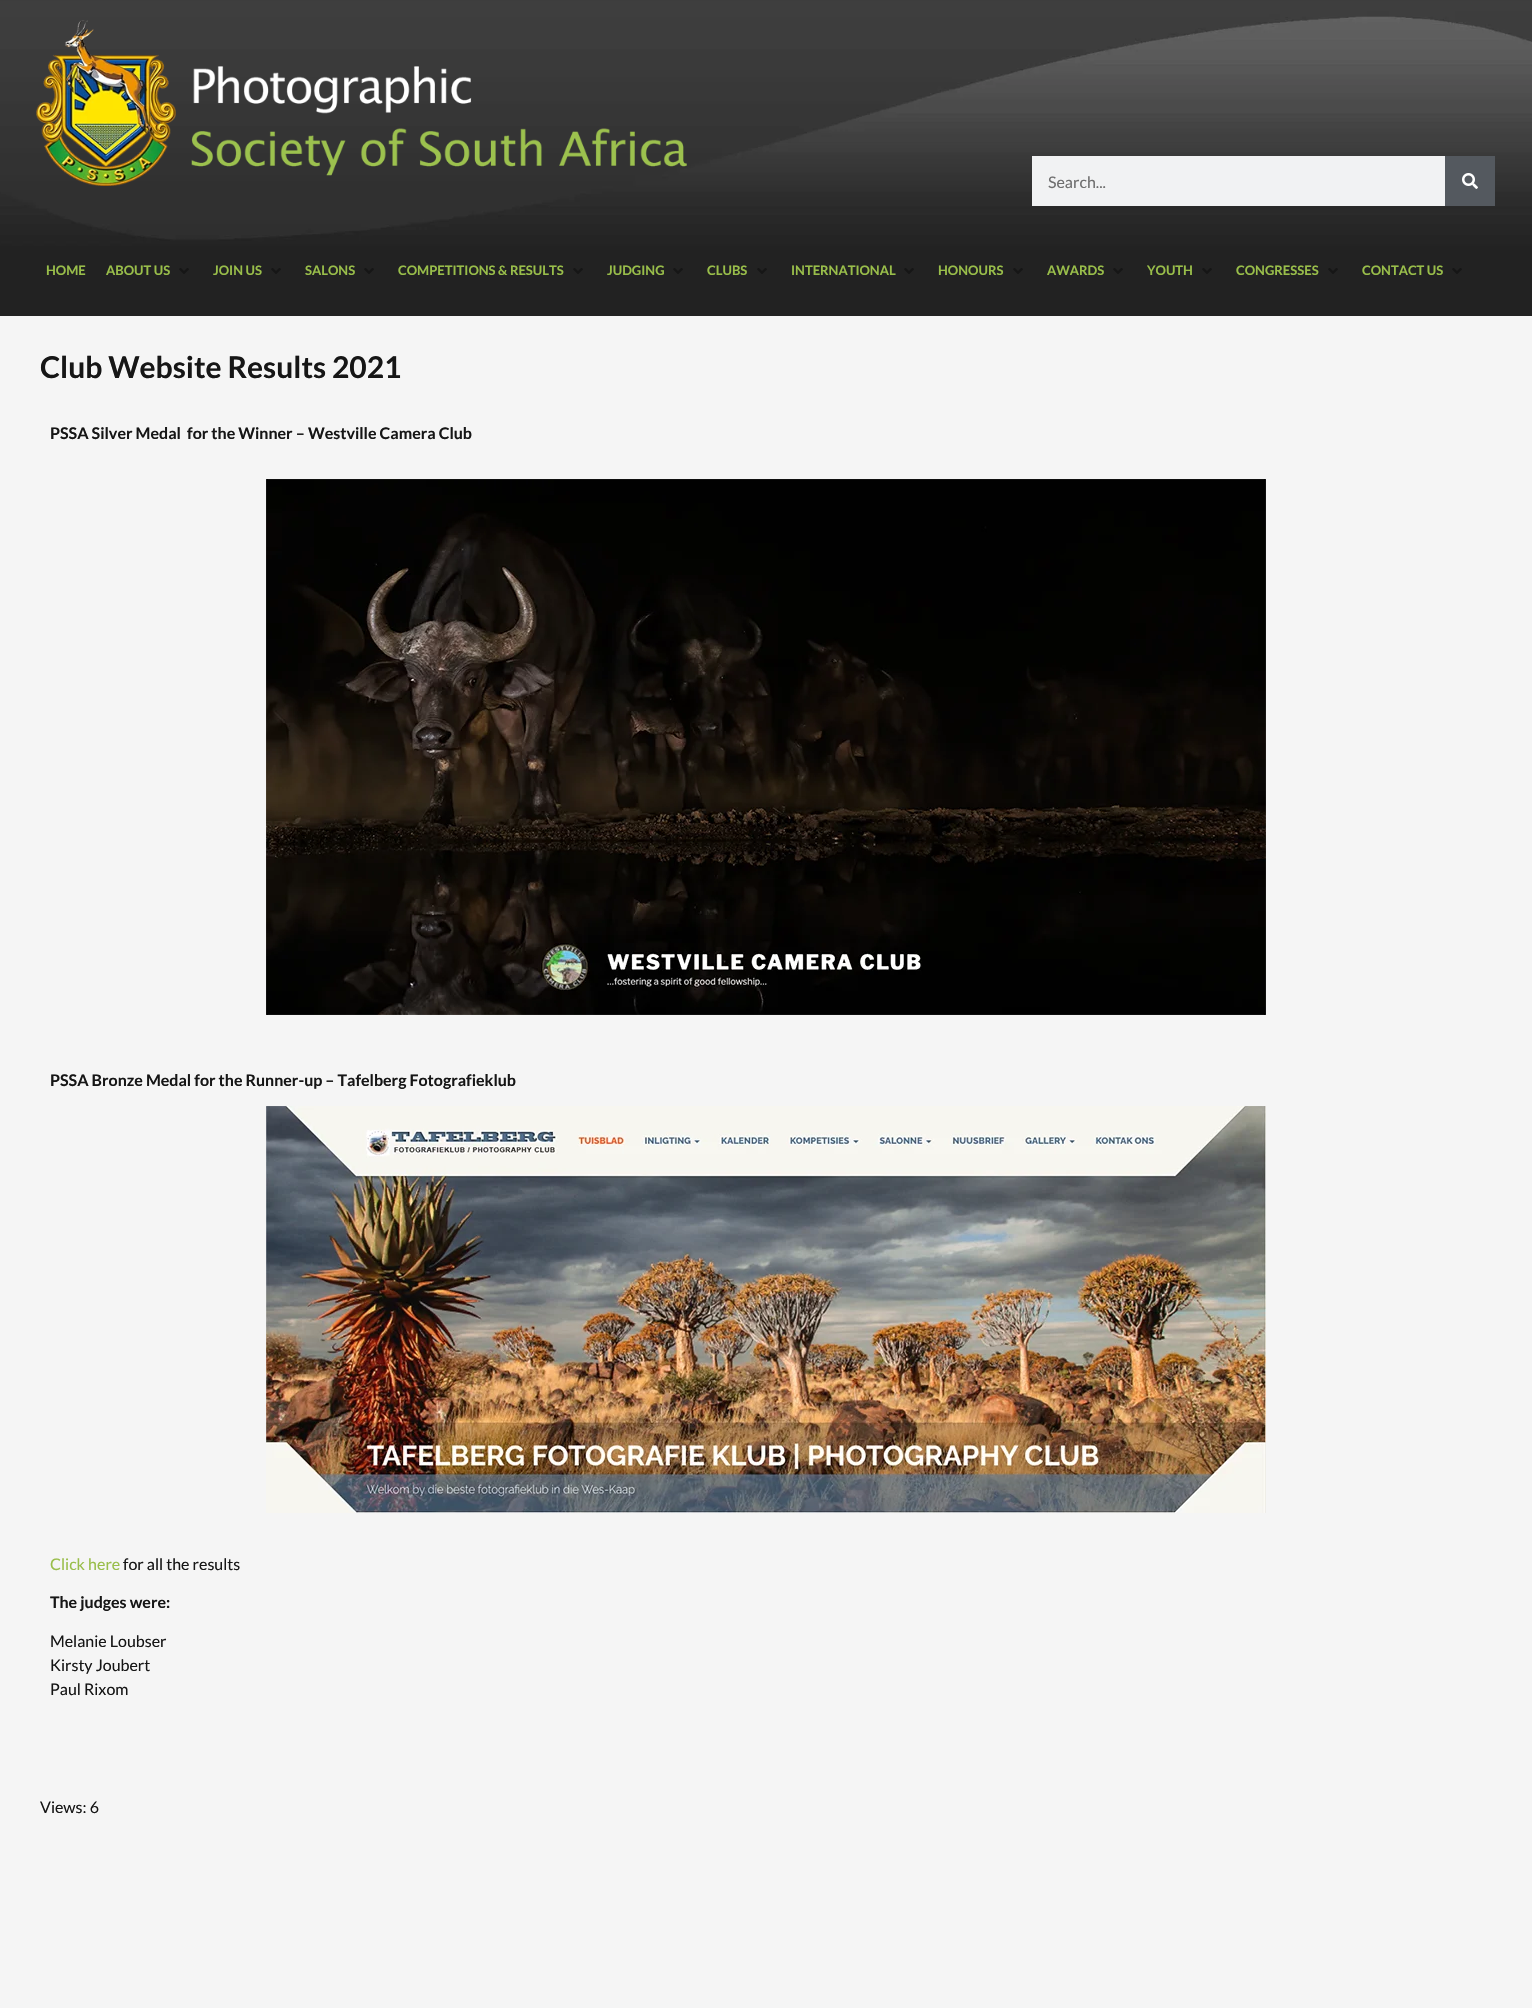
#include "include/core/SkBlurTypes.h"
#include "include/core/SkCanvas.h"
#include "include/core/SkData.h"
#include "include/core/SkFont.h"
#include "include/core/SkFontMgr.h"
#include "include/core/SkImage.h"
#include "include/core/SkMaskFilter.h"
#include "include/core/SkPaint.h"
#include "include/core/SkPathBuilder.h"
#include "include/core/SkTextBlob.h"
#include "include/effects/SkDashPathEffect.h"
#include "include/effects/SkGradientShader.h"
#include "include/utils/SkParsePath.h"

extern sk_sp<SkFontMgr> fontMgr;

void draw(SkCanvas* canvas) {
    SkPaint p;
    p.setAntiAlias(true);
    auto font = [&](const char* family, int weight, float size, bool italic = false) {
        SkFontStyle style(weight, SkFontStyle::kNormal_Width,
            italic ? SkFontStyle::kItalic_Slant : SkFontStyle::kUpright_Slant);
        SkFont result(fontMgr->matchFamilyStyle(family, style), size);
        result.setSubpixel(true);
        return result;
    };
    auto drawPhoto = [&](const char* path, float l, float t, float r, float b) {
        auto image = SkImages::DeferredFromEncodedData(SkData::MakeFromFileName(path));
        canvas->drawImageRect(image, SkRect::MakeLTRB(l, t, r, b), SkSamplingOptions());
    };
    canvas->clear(0xFFF5F5F5);
    drawPhoto("media/1.png", 0, 0, 1532, 246);
    drawPhoto("media/2.png", 36, 20, 687, 186);
    p.setColor(0xFFF1F2F3);
    canvas->drawRect(SkRect::MakeLTRB(1032, 156, 1445, 206), p);
    auto font1 = font("Lato", 400, 16);
    p.setColor(0xFF6E6E6E);
    canvas->drawString("Search...", 1048, 188, font1, p);
    p.setColor(0xFF54595F);
    canvas->drawRect(SkRect::MakeLTRB(1445, 156, 1495, 206), p);
    drawPhoto("media/3.png", 1462, 173, 1478, 189);
    p.setColor(0xFF222222);
    canvas->drawRect(SkRect::MakeLTRB(0, 246, 1532, 316), p);
    auto font2 = font("Lato", 700, 13);
    p.setColor(0xFF99BE4A);
    canvas->drawString("HOME", 46, 275, font2, p);
    canvas->drawString("ABOUT US", 106, 275, font2, p);
    drawPhoto("media/4.png", 179, 268, 189, 274);
    canvas->drawString("JOIN US", 213, 275, font2, p);
    drawPhoto("media/4.png", 271, 268, 281, 274);
    canvas->drawString("SALONS", 305, 275, font2, p);
    drawPhoto("media/4.png", 364, 268, 374, 274);
    canvas->drawString("COMPETITIONS & RESULTS", 398, 275, font2, p);
    drawPhoto("media/4.png", 573, 268, 583, 274);
    canvas->drawString("JUDGING", 607, 275, font2, p);
    drawPhoto("media/4.png", 673, 268, 683, 274);
    canvas->drawString("CLUBS", 707, 275, font2, p);
    drawPhoto("media/4.png", 757, 268, 767, 274);
    canvas->drawString("INTERNATIONAL", 791, 275, font2, p);
    drawPhoto("media/4.png", 904, 268, 914, 274);
    canvas->drawString("HONOURS", 938, 275, font2, p);
    drawPhoto("media/4.png", 1013, 268, 1023, 274);
    canvas->drawString("AWARDS", 1047, 275, font2, p);
    drawPhoto("media/4.png", 1113, 268, 1123, 274);
    canvas->drawString("YOUTH", 1147, 275, font2, p);
    drawPhoto("media/4.png", 1202, 268, 1212, 274);
    canvas->drawString("CONGRESSES", 1236, 275, font2, p);
    drawPhoto("media/4.png", 1328, 268, 1338, 274);
    canvas->drawString("CONTACT US", 1362, 275, font2, p);
    drawPhoto("media/4.png", 1452, 268, 1462, 274);
    auto font3 = font("Lato", 700, 30);
    p.setColor(0xFF161616);
    canvas->drawString("Club Website Results 2021", 40, 378, font3, p);
    auto font4 = font("Lato", 700, 16);
    canvas->drawString("PSSA Silver Medal  for the Winner – Westville Camera Club", 50, 439, font4, p);
    drawPhoto("media/5.png", 266, 479, 1266, 1015);
    canvas->drawString("PSSA Bronze Medal for the Runner-up – Tafelberg Fotografieklub", 50, 1086, font4, p);
    drawPhoto("media/6.png", 266, 1106, 1266, 1513);
    p.setColor(0xFF99BE4A);
    canvas->drawString("Click here", 50, 1570, font1, p);
    p.setColor(0xFF161616);
    canvas->drawString("for all the results", 123, 1570, font1, p);
    canvas->drawString("The judges were:", 50, 1608, font4, p);
    {
        const struct { const char* s; float x, y; } items[] = {
            {"Melanie Loubser", 50, 1647},
            {"Kirsty Joubert", 50, 1671},
            {"Paul Rixom", 50, 1695},
            {"Views: 6", 40, 1813},
        };
        for (auto [s, x, y] : items) {
            canvas->drawString(s, x, y, font1, p);
        }
    }
}
